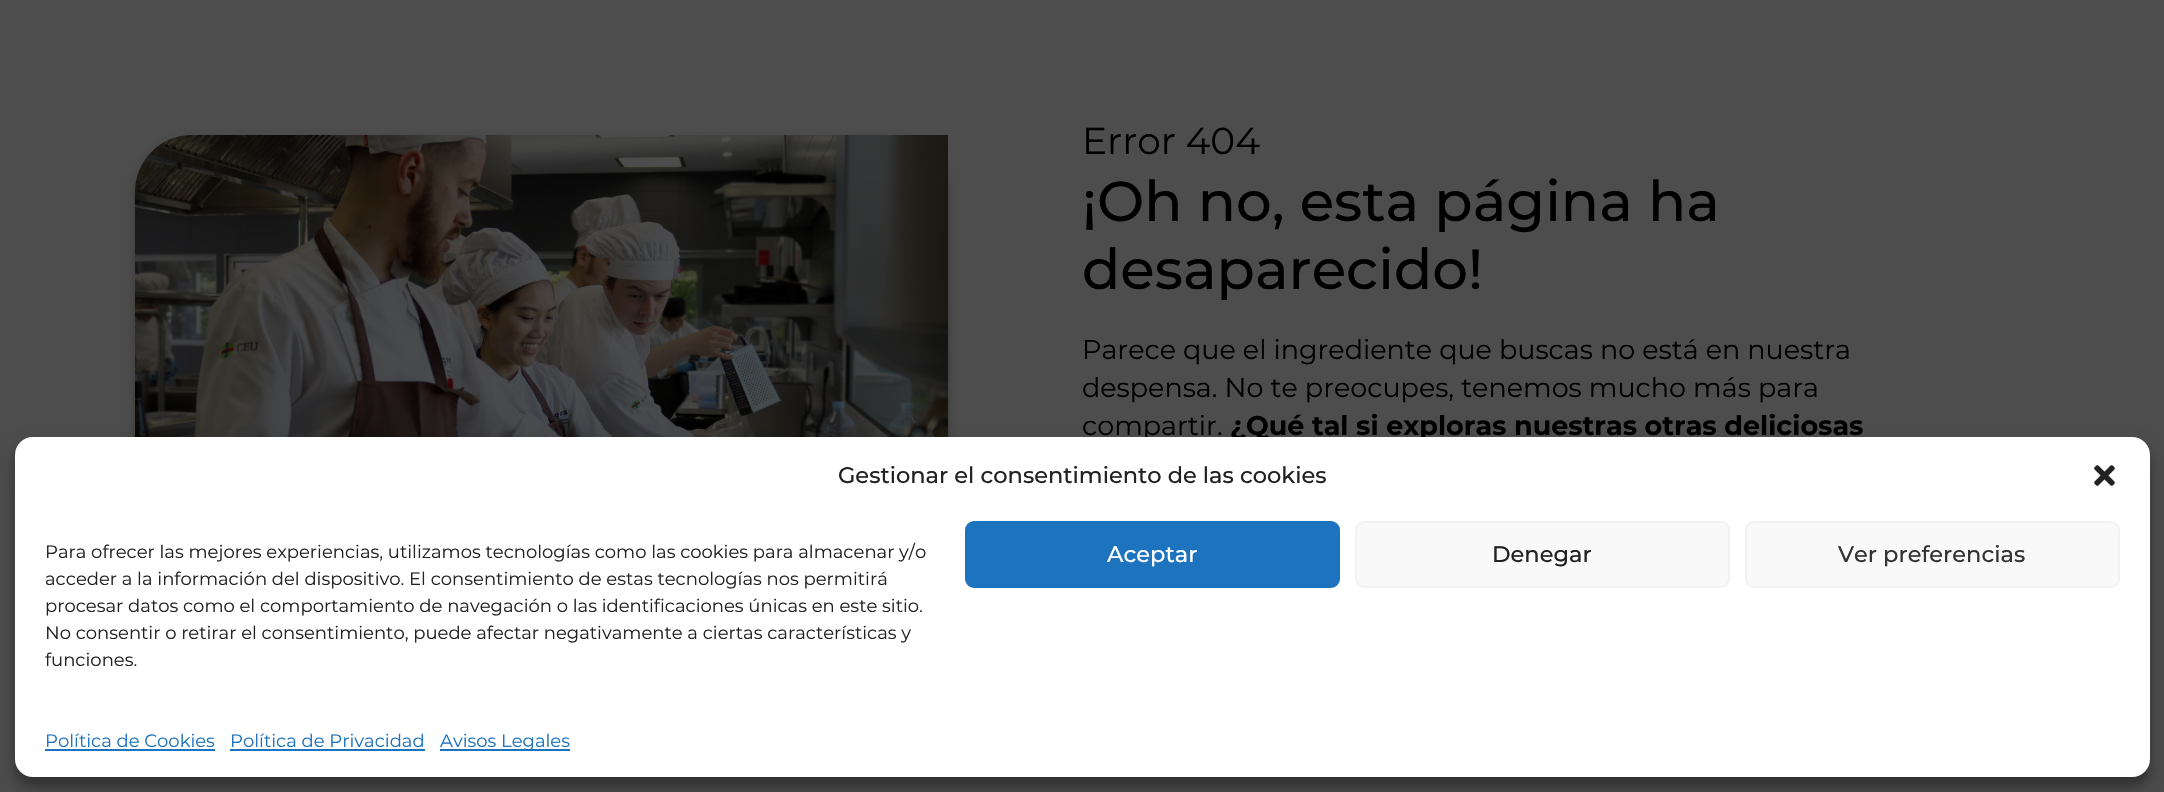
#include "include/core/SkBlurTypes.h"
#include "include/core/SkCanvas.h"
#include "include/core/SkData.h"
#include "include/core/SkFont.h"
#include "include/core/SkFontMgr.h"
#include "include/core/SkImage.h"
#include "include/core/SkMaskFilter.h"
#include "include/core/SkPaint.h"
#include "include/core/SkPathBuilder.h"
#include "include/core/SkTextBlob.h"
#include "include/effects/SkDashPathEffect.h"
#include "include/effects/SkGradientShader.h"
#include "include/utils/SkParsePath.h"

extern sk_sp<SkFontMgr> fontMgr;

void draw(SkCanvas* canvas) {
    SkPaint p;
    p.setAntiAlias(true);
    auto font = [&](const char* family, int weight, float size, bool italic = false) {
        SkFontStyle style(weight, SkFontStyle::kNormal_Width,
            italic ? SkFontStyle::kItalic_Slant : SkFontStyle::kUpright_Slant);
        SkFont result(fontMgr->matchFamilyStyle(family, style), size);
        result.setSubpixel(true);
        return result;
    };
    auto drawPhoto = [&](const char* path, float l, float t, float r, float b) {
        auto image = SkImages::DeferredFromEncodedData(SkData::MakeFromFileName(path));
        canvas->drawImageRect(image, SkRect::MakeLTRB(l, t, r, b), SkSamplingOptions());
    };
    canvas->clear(0xFF4D4D4D);
    p.setColor(0x3D000000);
    p.setMaskFilter(SkMaskFilter::MakeBlur(kNormal_SkBlurStyle, 6));
    canvas->drawRoundRect(SkRect::MakeLTRB(135, 140, 948, 597), 57, 57, p);
    p.setMaskFilter(nullptr);
    drawPhoto("media/1.png", 135, 135, 948, 437);
    auto font1 = font("Montserrat", 400, 37.5f);
    p.setColor(0xFF000000);
    canvas->drawString("Error 404", 1082, 154, font1, p);
    auto font2 = font("Montserrat", 500, 56.25f);
    canvas->drawString("¡Oh no, esta página ha", 1082, 221, font2, p);
    canvas->drawString("desaparecido!", 1082, 289, font2, p);
    auto font3 = font("Montserrat", 400, 27);
    {
        const struct { const char* s; float x, y; } items[] = {
            {"Parece que el ingrediente que buscas no está en nuestra", 1082, 359},
            {"despensa. No te preocupes, tenemos mucho más para", 1082, 397},
            {"compartir.", 1082, 435},
        };
        for (auto [s, x, y] : items) {
            canvas->drawString(s, x, y, font3, p);
        }
    }
    auto font4 = font("Montserrat", 700, 27);
    canvas->drawString("¿Qué tal si exploras nuestras otras deliciosas", 1230, 435, font4, p);
    p.setColor(0x3B000000);
    p.setMaskFilter(SkMaskFilter::MakeBlur(kNormal_SkBlurStyle, 4.5f));
    canvas->drawRoundRect(SkRect::MakeLTRB(15, 446, 2150, 786), 18, 18, p);
    p.setMaskFilter(nullptr);
    p.setColor(0x30000000);
    p.setMaskFilter(SkMaskFilter::MakeBlur(kNormal_SkBlurStyle, 15));
    canvas->drawRoundRect(SkRect::MakeLTRB(15, 452, 2150, 792), 18, 18, p);
    p.setMaskFilter(nullptr);
    p.setColor(0xFFFFFFFF);
    canvas->drawRoundRect(SkRect::MakeLTRB(15, 437, 2150, 777), 18, 18, p);
    auto font5 = font("Montserrat", 500, 22.5f);
    p.setColor(0xFF222222);
    canvas->drawString("Gestionar el consentimiento de las cookies", 838, 483, font5, p);
    drawPhoto("media/2.png", 2094, 465, 2115, 486);
    auto font6 = font("Montserrat", 400, 18);
    {
        const struct { const char* s; float x, y; } items[] = {
            {"Para ofrecer las mejores experiencias, utilizamos tecnologías como las cookies para almacenar y/o", 45, 558},
            {"acceder a la información del dispositivo. El consentimiento de estas tecnologías nos permitirá", 45, 585},
            {"procesar datos como el comportamiento de navegación o las identificaciones únicas en este sitio.", 45, 612},
            {"No consentir o retirar el consentimiento, puede afectar negativamente a ciertas características y", 45, 639},
            {"funciones.", 45, 666},
        };
        for (auto [s, x, y] : items) {
            canvas->drawString(s, x, y, font6, p);
        }
    }
    p.setColor(0xFF1E73BE);
    canvas->drawRoundRect(SkRect::MakeLTRB(966, 522, 1339, 587), 8, 8, p);
    p.setStyle(SkPaint::kStroke_Style);
    p.setStrokeWidth(2);
    canvas->drawRoundRect(SkRect::MakeLTRB(966, 522, 1339, 587), 8, 8, p);
    p.setStyle(SkPaint::kFill_Style);
    p.setColor(0xFFFFFFFF);
    canvas->drawString("Aceptar", 1107, 562, font5, p);
    p.setColor(0xFFF9F9F9);
    canvas->drawRoundRect(SkRect::MakeLTRB(1356, 522, 1729, 587), 8, 8, p);
    p.setStyle(SkPaint::kStroke_Style);
    p.setColor(0xFFF2F2F2);
    canvas->drawRoundRect(SkRect::MakeLTRB(1356, 522, 1729, 587), 8, 8, p);
    p.setStyle(SkPaint::kFill_Style);
    p.setColor(0xFF222222);
    canvas->drawString("Denegar", 1492, 562, font5, p);
    p.setColor(0xFFF9F9F9);
    canvas->drawRoundRect(SkRect::MakeLTRB(1746, 522, 2119, 587), 8, 8, p);
    p.setStyle(SkPaint::kStroke_Style);
    p.setColor(0xFFF2F2F2);
    canvas->drawRoundRect(SkRect::MakeLTRB(1746, 522, 2119, 587), 8, 8, p);
    p.setStyle(SkPaint::kFill_Style);
    p.setColor(0xFF333333);
    canvas->drawString("Ver preferencias", 1838, 562, font5, p);
    p.setColor(0xFF1E73BE);
    canvas->drawString("Política de Cookies", 45, 747, font6, p);
    canvas->drawRect(SkRect::MakeLTRB(45, 749, 215, 751), p);
    canvas->drawString("Política de Privacidad", 230, 747, font6, p);
    canvas->drawRect(SkRect::MakeLTRB(230, 749, 425, 751), p);
    canvas->drawRect(SkRect::MakeLTRB(440, 749, 570, 751), p);
    canvas->drawString("Avisos Legales", 440, 747, font6, p);
}
